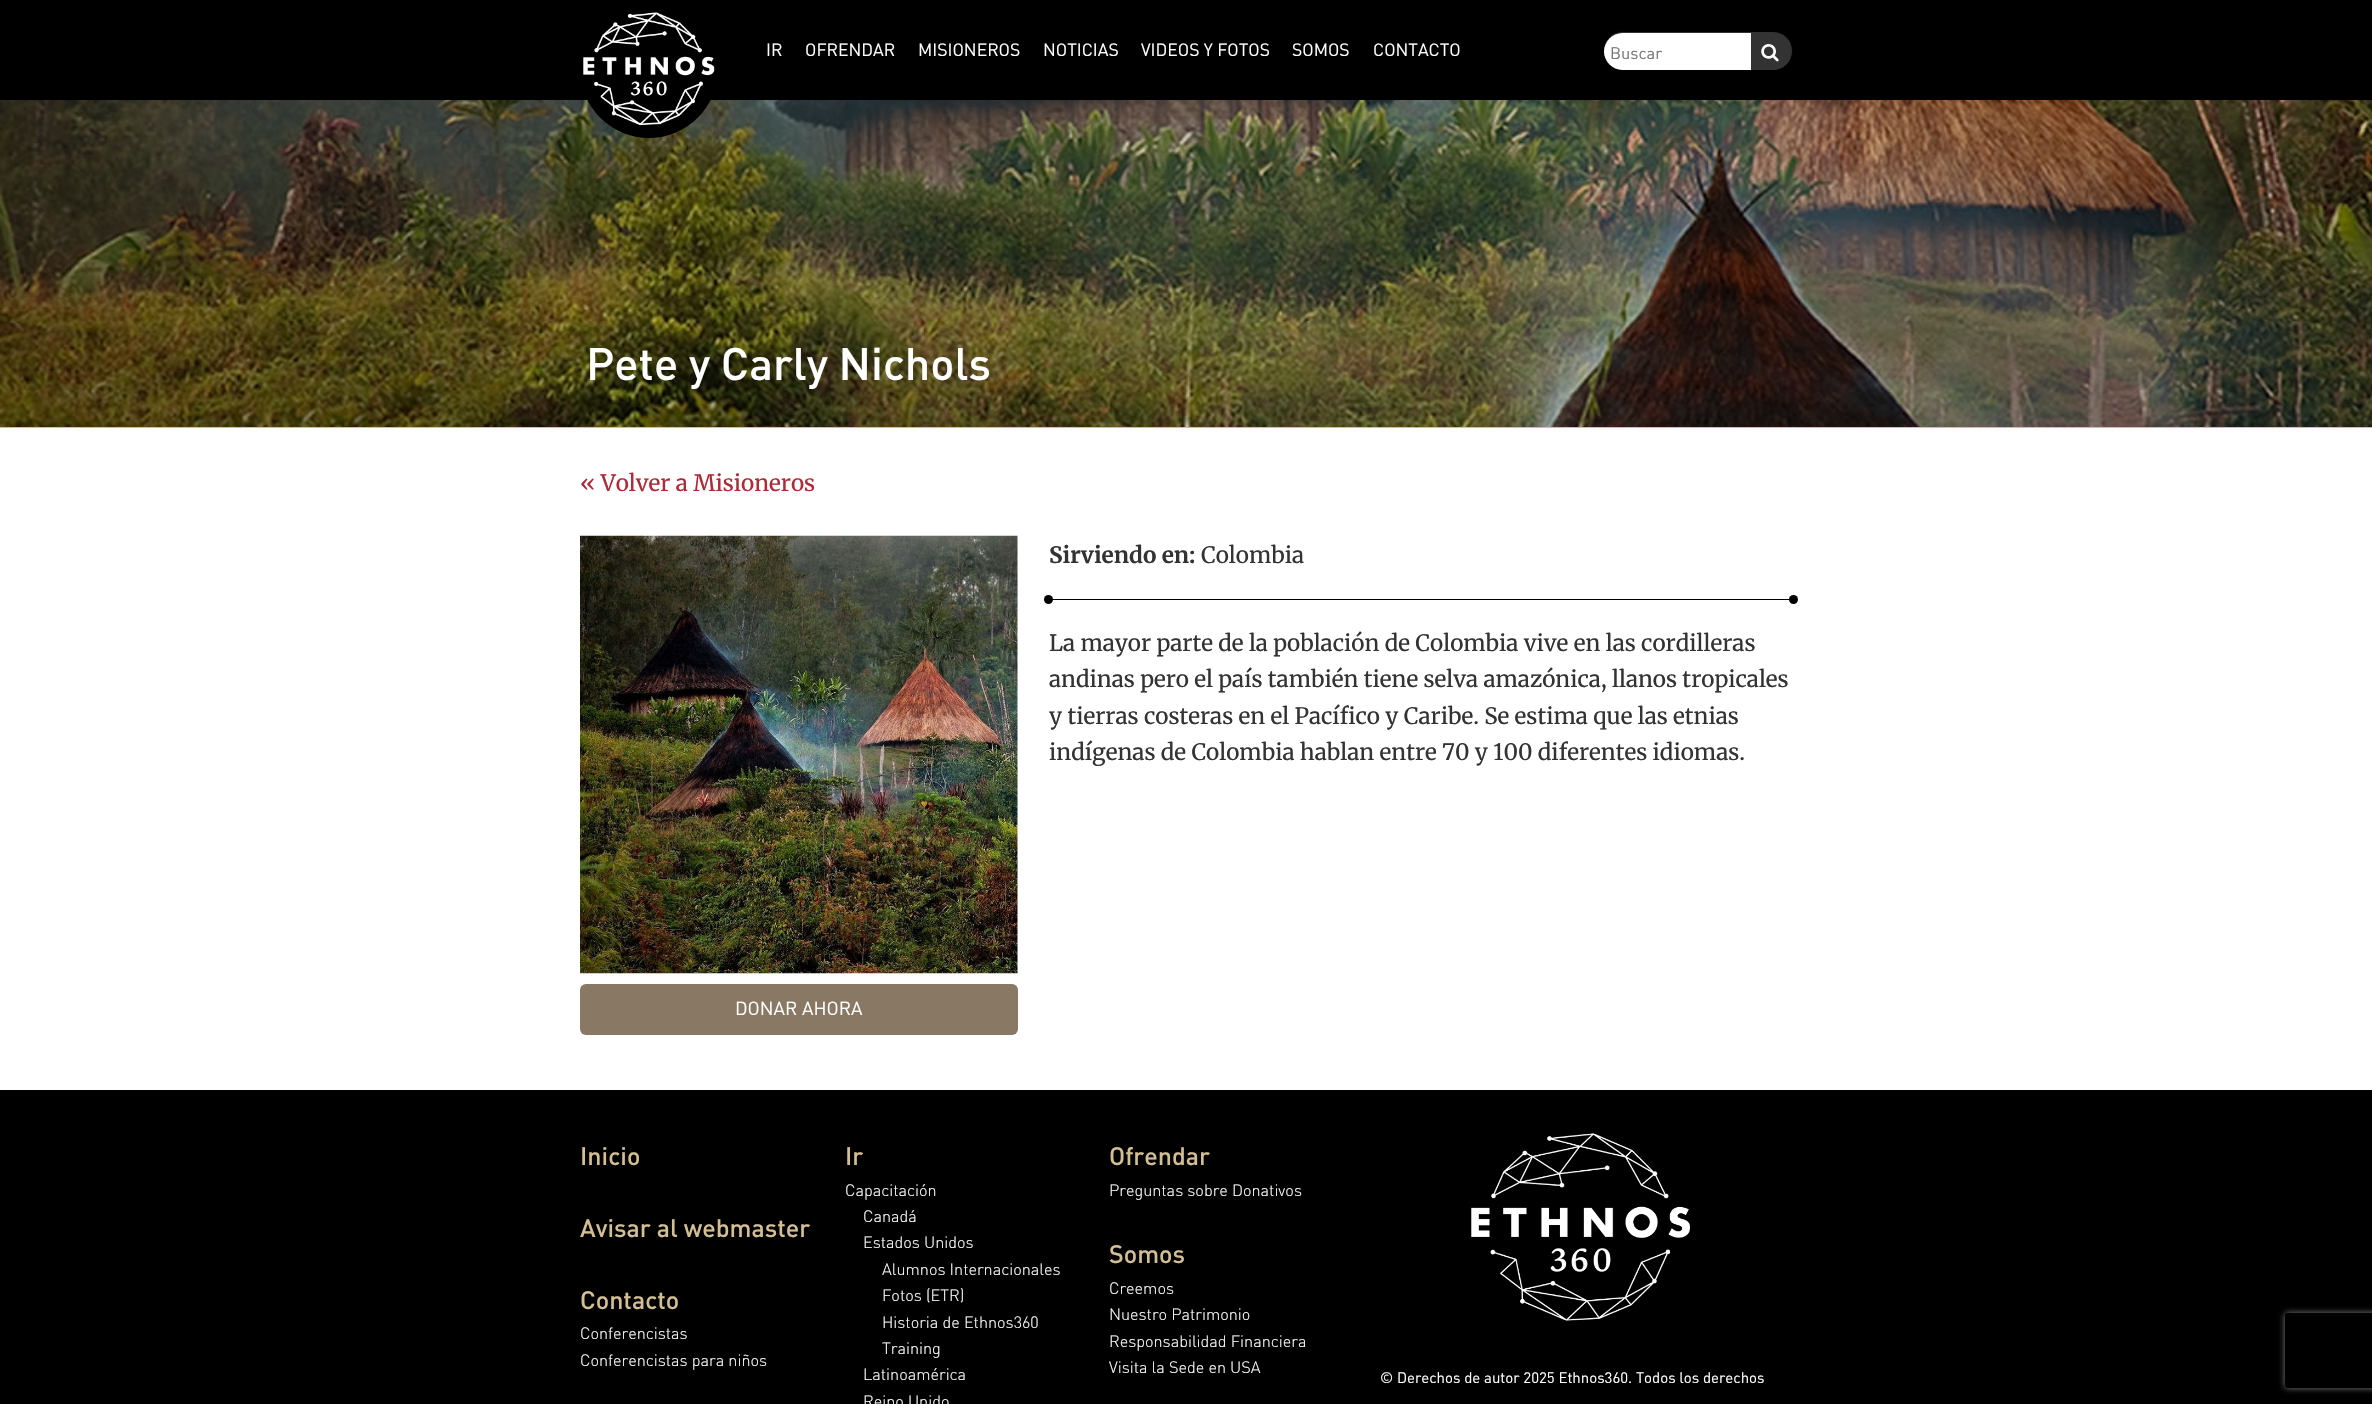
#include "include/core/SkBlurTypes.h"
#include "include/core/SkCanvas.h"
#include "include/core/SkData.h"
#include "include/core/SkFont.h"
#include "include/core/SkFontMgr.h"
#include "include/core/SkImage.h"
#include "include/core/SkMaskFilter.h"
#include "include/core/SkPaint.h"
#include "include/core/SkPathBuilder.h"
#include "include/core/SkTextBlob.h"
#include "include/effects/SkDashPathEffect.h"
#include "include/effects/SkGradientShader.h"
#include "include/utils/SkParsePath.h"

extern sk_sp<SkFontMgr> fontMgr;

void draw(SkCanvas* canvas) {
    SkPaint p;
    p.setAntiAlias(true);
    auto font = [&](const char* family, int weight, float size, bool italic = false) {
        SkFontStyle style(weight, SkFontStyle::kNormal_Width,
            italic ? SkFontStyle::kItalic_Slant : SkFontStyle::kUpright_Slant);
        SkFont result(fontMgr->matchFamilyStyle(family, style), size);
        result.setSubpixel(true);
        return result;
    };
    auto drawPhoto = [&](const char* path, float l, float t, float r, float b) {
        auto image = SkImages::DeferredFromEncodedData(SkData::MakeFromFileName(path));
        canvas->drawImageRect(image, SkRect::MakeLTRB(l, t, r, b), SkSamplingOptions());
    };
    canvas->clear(0xFFFFFFFF);
    p.setColor(0xFF000000);
    canvas->drawRect(SkRect::MakeLTRB(0, 0, 2372, 100), p);
    drawPhoto("media/3.png", 0, 100, 2372, 427);
    canvas->drawCircle(649, 69, 69, p);
    drawPhoto("media/1.png", 583, 12, 715, 126);
    auto font1 = font("DIN", 400, 17.5f);
    p.setColor(0xFFFFFFFF);
    {
        const struct { const char* s; float x, y; } items[] = {
            {"IR", 766, 56},
            {"OFRENDAR", 805, 56},
            {"MISIONEROS", 918, 56},
            {"NOTICIAS", 1043, 56},
            {"VIDEOS Y FOTOS", 1141, 56},
            {"SOMOS", 1292, 56},
            {"CONTACTO", 1373, 56},
        };
        for (auto [s, x, y] : items) {
            canvas->drawString(s, x, y, font1, p);
        }
    }
    p.setColor(0xFF333333);
    canvas->drawRoundRect(SkRect::MakeLTRB(1603.5f, 31.5f, 1792.5f, 70.5f), 19.5f, 19.5f, p);
    p.setStyle(SkPaint::kStroke_Style);
    p.setStrokeWidth(1);
    p.setColor(0xFF000000);
    canvas->drawRoundRect(SkRect::MakeLTRB(1603.5f, 31.5f, 1792.5f, 70.5f), 19.5f, 19.5f, p);
    canvas->save();
    canvas->clipPath(SkPathBuilder().moveTo(1622.5f, 33).lineTo(1772.5f, 33).cubicTo(1782.5f, 33, 1791, 41.5f, 1791, 51.5f).cubicTo(1791, 61.5f, 1782.5f, 70, 1772.5f, 70).lineTo(1622.5f, 70).cubicTo(1612.5f, 70, 1604, 61.5f, 1604, 51.5f).cubicTo(1604, 41.5f, 1612.5f, 33, 1622.5f, 33).close().detach(), true);
    p.setStyle(SkPaint::kFill_Style);
    p.setColor(0xFF333333);
    canvas->drawRoundRect(SkRect::MakeLTRB(1751, 34, 1789, 71), 6, 6, p);
    canvas->restore();
    p.setColor(0xFFFFFFFF);
    canvas->drawPath(SkPathBuilder().moveTo(1622.5f, 33).lineTo(1751, 33).lineTo(1751, 70).lineTo(1622.5f, 70).cubicTo(1612.5f, 70, 1604, 61.5f, 1604, 51.5f).cubicTo(1604, 41.5f, 1612.5f, 33, 1622.5f, 33).close().detach(), p);
    auto font2 = font("DIN", 400, 16.5f);
    p.setColor(0xFF757575);
    canvas->drawString("Buscar", 1610, 59, font2, p);
    drawPhoto("media/2.png", 1761, 44, 1779, 62);
    p.setColor(0xFFD4BF93);
    canvas->drawRect(SkRect::MakeLTRB(0, 427, 2372, 428), p);
    auto font3 = font("DIN", 500, 45);
    p.setColor(0xFFFFFFFF);
    canvas->drawString("Pete y Carly Nichols", 586, 380, font3, p);
    auto font4 = font("Merriweather", 400, 22.5f);
    p.setColor(0xFFAC2B37);
    canvas->drawString("« Volver a Misioneros", 580, 491, font4, p);
    auto font5 = font("Merriweather", 700, 22.5f);
    p.setColor(0xFF333333);
    canvas->drawString("Sirviendo en:", 1049, 563, font5, p);
    canvas->drawString("Colombia", 1201, 563, font4, p);
    p.setColor(0xFF000000);
    canvas->drawRect(SkRect::MakeLTRB(1049, 599, 1793, 600), p);
    canvas->drawCircle(1048.5f, 599.5f, 4.5f, p);
    canvas->drawCircle(1793.5f, 599.5f, 4.5f, p);
    p.setColor(0xFF333333);
    {
        const struct { const char* s; float x, y; } items[] = {
            {"La mayor parte de la población de Colombia vive en las cordilleras", 1049, 651},
            {"andinas pero el país también tiene selva amazónica, llanos tropicales", 1049, 687},
            {"y tierras costeras en el Pacífico y Caribe. Se estima que las etnias", 1049, 724},
            {"indígenas de Colombia hablan entre 70 y 100 diferentes idiomas.", 1049, 760},
        };
        for (auto [s, x, y] : items) {
            canvas->drawString(s, x, y, font4, p);
        }
    }
    drawPhoto("media/4.png", 580, 535, 1018, 974);
    p.setColor(0xFF897863);
    canvas->drawRoundRect(SkRect::MakeLTRB(580, 984, 1018, 1035), 6, 6, p);
    auto font6 = font("DIN", 400, 18.75f);
    p.setColor(0xFFFFFFFF);
    canvas->drawString("DONAR AHORA", 735, 1015, font6, p);
    p.setColor(0xFF000000);
    canvas->drawRect(SkRect::MakeLTRB(0, 1090, 2372, 1404), p);
    auto font7 = font("DIN", 500, 25);
    p.setColor(0xFFD4BF93);
    canvas->drawString("Inicio", 580, 1165, font7, p);
    canvas->drawString("Ir", 845, 1165, font7, p);
    auto font8 = font("DIN", 300, 16.25f);
    p.setColor(0xFFFFFFFF);
    {
        const struct { const char* s; float x, y; } items[] = {
            {"Capacitación", 845, 1196},
            {"Canadá", 863, 1222},
            {"Estados Unidos", 863, 1248},
            {"Alumnos Internacionales", 882, 1275},
            {"Fotos (ETR)", 882, 1301},
            {"Historia de Ethnos360", 882, 1328},
            {"Training", 882, 1354},
            {"Latinoamérica", 863, 1380},
            {"Reino Unido", 863, 1407},
        };
        for (auto [s, x, y] : items) {
            canvas->drawString(s, x, y, font8, p);
        }
    }
    p.setColor(0xFFD4BF93);
    canvas->drawString("Ofrendar", 1109, 1165, font7, p);
    p.setColor(0xFFFFFFFF);
    canvas->drawString("Preguntas sobre Donativos", 1109, 1196, font8, p);
    p.setColor(0xFFD4BF93);
    canvas->drawString("Avisar al webmaster", 580, 1237, font7, p);
    canvas->drawString("Contacto", 580, 1309, font7, p);
    p.setColor(0xFFFFFFFF);
    canvas->drawString("Conferencistas", 580, 1339, font8, p);
    canvas->drawString("Conferencistas para niños", 580, 1366, font8, p);
    p.setColor(0xFFD4BF93);
    canvas->drawString("Somos", 1109, 1263, font7, p);
    p.setColor(0xFFFFFFFF);
    {
        const struct { const char* s; float x, y; } items[] = {
            {"Creemos", 1109, 1294},
            {"Nuestro Patrimonio", 1109, 1320},
            {"Responsabilidad Financiera", 1109, 1347},
            {"Visita la Sede en USA", 1109, 1373},
        };
        for (auto [s, x, y] : items) {
            canvas->drawString(s, x, y, font8, p);
        }
    }
    drawPhoto("media/5.png", 1471, 1133, 1690, 1321);
    auto font9 = font("DIN", 400, 15);
    canvas->drawString("© Derechos de autor 2025 Ethnos360. Todos los derechos", 1380, 1383, font9, p);
    canvas->save();
    canvas->clipPath(SkPathBuilder(SkPathFillType::kEvenOdd).moveTo(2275, 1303).lineTo(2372, 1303).lineTo(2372, 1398).lineTo(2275, 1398).close().moveTo(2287.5f, 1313).lineTo(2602.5f, 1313).cubicTo(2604, 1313, 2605, 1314, 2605, 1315.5f).lineTo(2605, 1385.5f).cubicTo(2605, 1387, 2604, 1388, 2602.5f, 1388).lineTo(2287.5f, 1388).cubicTo(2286, 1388, 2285, 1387, 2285, 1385.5f).lineTo(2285, 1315.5f).cubicTo(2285, 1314, 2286, 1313, 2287.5f, 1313).close().detach(), true);
    p.setColor(0xFF808080);
    p.setMaskFilter(SkMaskFilter::MakeBlur(kNormal_SkBlurStyle, 3));
    canvas->drawRoundRect(SkRect::MakeLTRB(2285, 1313, 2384, 1388), 2.5f, 2.5f, p);
    p.setMaskFilter(nullptr);
    canvas->restore();
}
